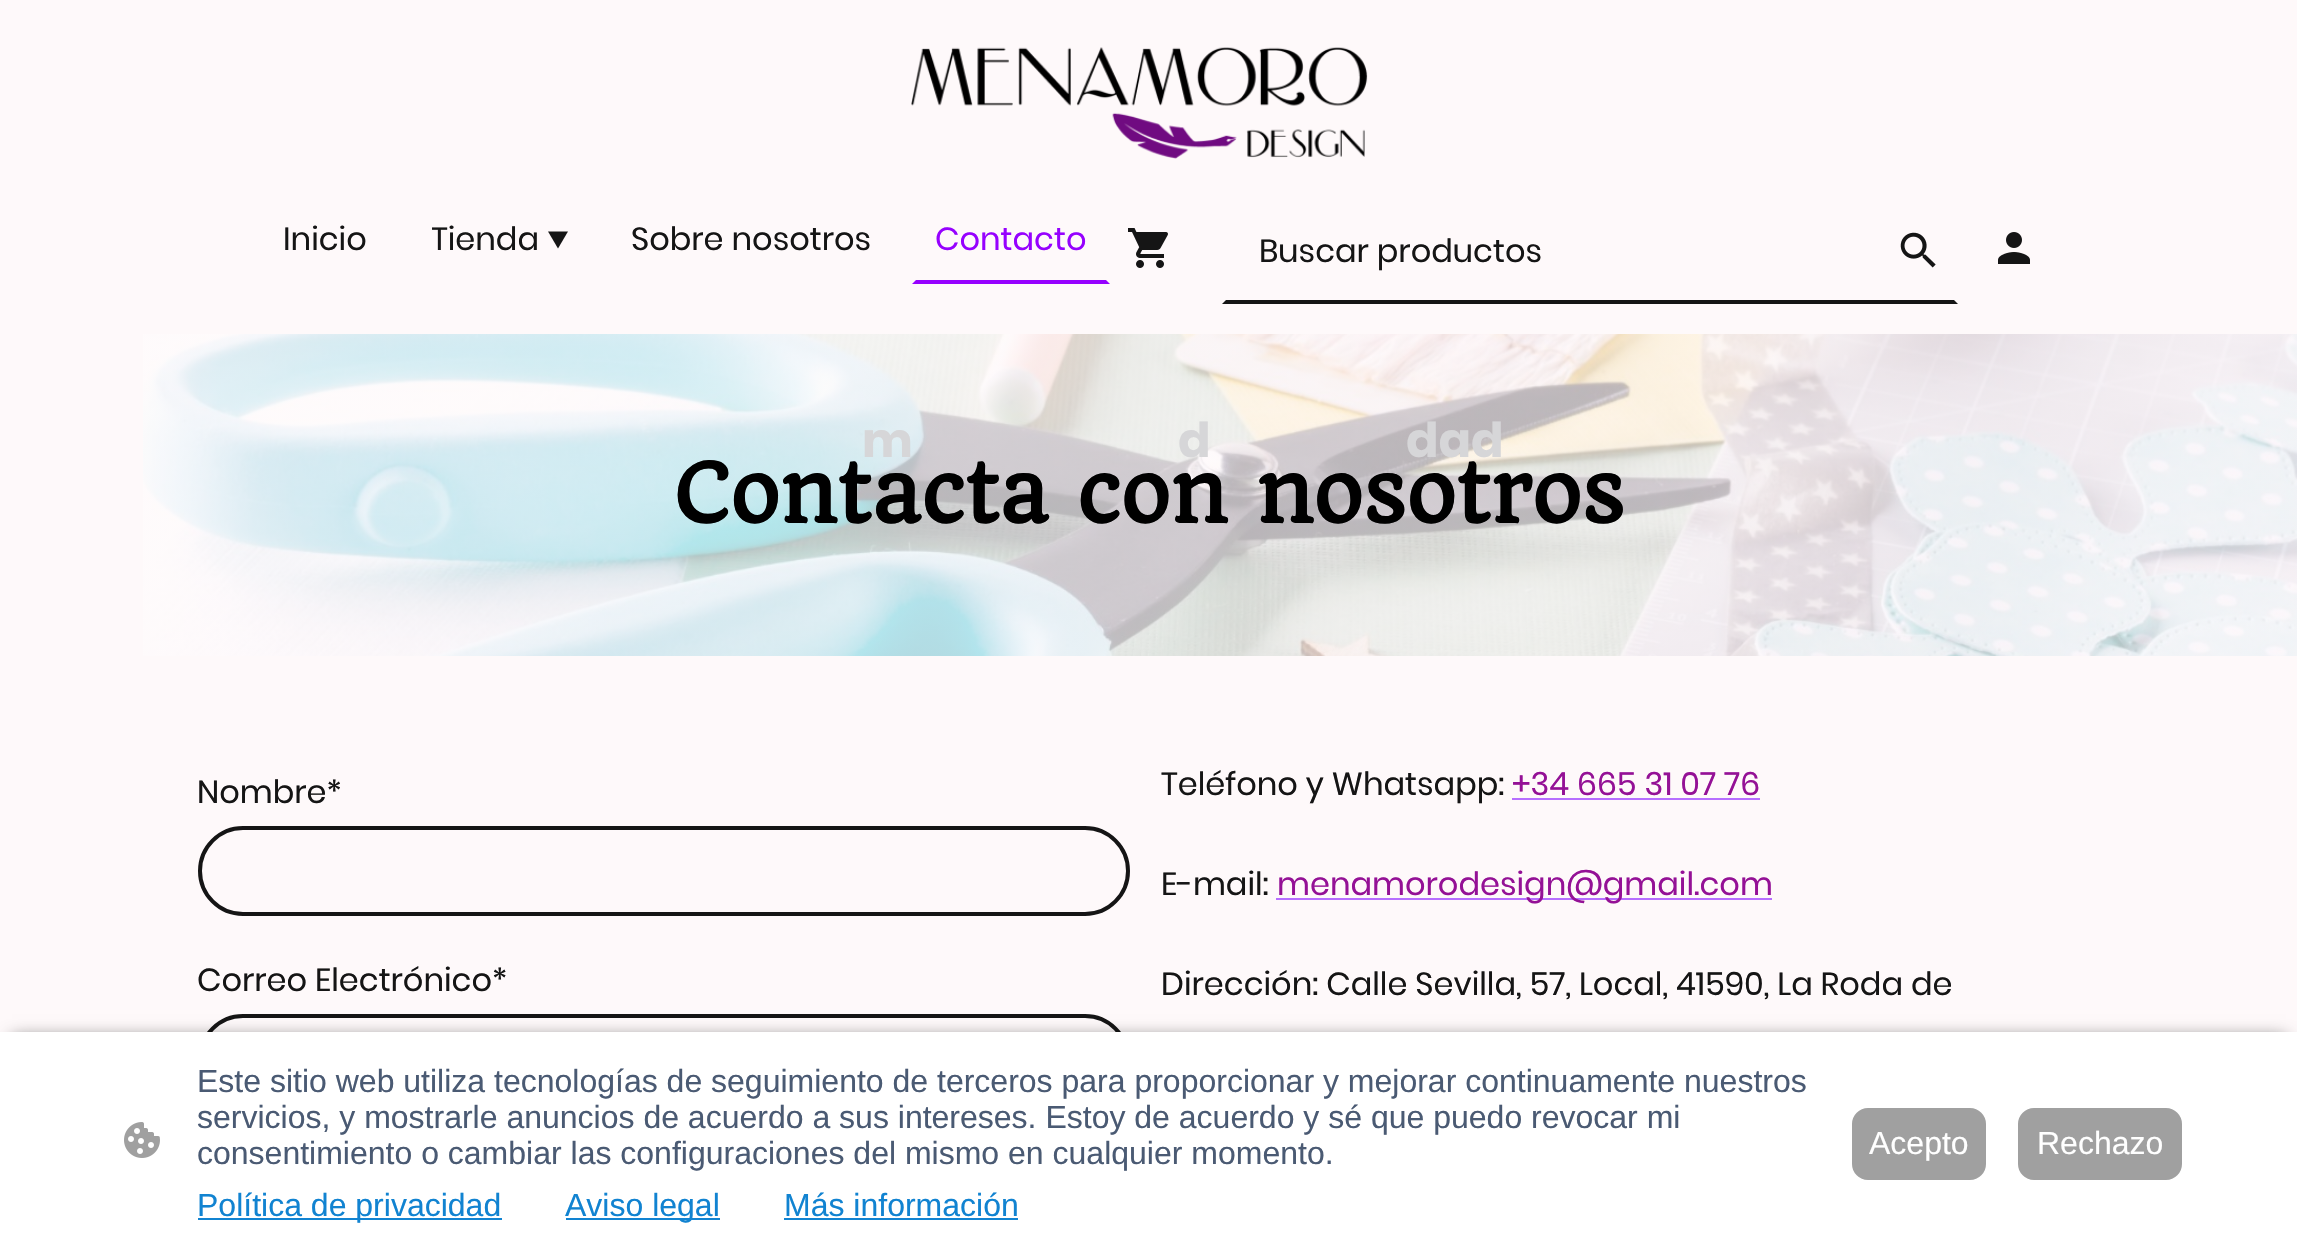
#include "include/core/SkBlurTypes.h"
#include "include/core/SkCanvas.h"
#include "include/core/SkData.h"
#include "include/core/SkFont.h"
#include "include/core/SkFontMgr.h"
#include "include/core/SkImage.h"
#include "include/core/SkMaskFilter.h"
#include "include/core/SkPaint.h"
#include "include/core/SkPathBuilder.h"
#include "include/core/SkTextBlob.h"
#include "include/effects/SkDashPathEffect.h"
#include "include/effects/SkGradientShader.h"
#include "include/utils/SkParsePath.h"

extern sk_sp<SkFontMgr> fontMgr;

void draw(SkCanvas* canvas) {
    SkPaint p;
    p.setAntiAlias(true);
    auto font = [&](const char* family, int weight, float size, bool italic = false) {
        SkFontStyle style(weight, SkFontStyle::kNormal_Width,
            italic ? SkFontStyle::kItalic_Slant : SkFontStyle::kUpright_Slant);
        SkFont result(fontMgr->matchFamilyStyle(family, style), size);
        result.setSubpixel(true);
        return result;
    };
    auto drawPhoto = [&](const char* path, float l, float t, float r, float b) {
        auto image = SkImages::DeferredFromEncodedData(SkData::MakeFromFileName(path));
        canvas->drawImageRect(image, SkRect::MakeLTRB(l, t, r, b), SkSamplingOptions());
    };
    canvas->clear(0xFFFEF9FA);
    drawPhoto("media/1.png", 911, 47, 1368, 159);
    auto font1 = font("Poppins", 400, 32);
    p.setColor(0xFF151515);
    canvas->drawString("Inicio", 283, 250, font1, p);
    canvas->save();
    canvas->clipRect(SkRect::MakeLTRB(432, 214, 540, 264));
    canvas->drawString("Tienda", 431, 250, font1, p);
    canvas->restore();
    canvas->drawPath(SkPathBuilder().moveTo(568, 231.5f).lineTo(558, 248.5f).lineTo(548, 231.5f).close().detach(), p);
    canvas->drawString("Sobre nosotros", 631, 250, font1, p);
    p.setColor(0xFF9601FF);
    canvas->drawPath(SkPathBuilder().moveTo(1110, 284).lineTo(912, 284).lineTo(916, 280).lineTo(1106, 280).close().detach(), p);
    canvas->drawString("Contacto", 935, 250, font1, p);
    drawPhoto("media/2.png", 1128, 228, 1168, 268);
    p.setColor(0xFF151515);
    canvas->drawPath(SkPathBuilder().moveTo(1958, 304).lineTo(1222, 304).lineTo(1226, 300).lineTo(1954, 300).close().detach(), p);
    canvas->drawString("Buscar productos", 1259, 262, font1, p);
    drawPhoto("media/3.png", 1900, 232, 1936, 268);
    drawPhoto("media/4.png", 1998, 232, 2030, 264);
    drawPhoto("media/5.png", 143, 334, 2297, 656);
    auto font2 = font("Quando", 700, 80);
    p.setColor(0xFF000000);
    canvas->drawString("Contacta con nosotros", 673, 523, font2, p);
    p.setColor(0xFF151515);
    canvas->drawString("Nombre*", 197, 803, font1, p);
    p.setStyle(SkPaint::kStroke_Style);
    p.setStrokeWidth(4);
    canvas->drawRoundRect(SkRect::MakeLTRB(200, 828, 1128, 914), 43, 43, p);
    p.setStyle(SkPaint::kFill_Style);
    canvas->drawString("Correo Electrónico*", 197, 991, font1, p);
    p.setStyle(SkPaint::kStroke_Style);
    canvas->drawRoundRect(SkRect::MakeLTRB(200, 1016, 1128, 1102), 43, 43, p);
    p.setStyle(SkPaint::kFill_Style);
    canvas->drawString("Teléfono y Whatsapp:", 1161, 795, font1, p);
    p.setColor(0xFF941196);
    canvas->drawString("+34 665 31 07 76", 1512, 795, font1, p);
    p.setColor(0xFFB66EFF);
    canvas->drawRect(SkRect::MakeLTRB(1512, 798, 1760, 800), p);
    p.setColor(0xFF151515);
    canvas->drawString("E-mail:", 1161, 895, font1, p);
    p.setColor(0xFFB66EFF);
    canvas->drawRect(SkRect::MakeLTRB(1276, 898, 1772, 900), p);
    p.setColor(0xFF941196);
    canvas->drawString("menamorodesign@gmail.com", 1277, 895, font1, p);
    p.setColor(0xFF151515);
    canvas->drawString("Dirección: Calle Sevilla, 57, Local, 41590, La Roda de", 1161, 995, font1, p);
    auto font3 = font("Poppins", 700, 48);
    p.setColor(0xFFD6D6D8);
    {
        const struct { const char* s; float x, y; } items[] = {
            {"m", 862, 457},
            {"d", 1178, 457},
            {"dad", 1406, 457},
        };
        for (auto [s, x, y] : items) {
            canvas->drawString(s, x, y, font3, p);
        }
    }
    p.setColor(0xA1000000);
    p.setMaskFilter(SkMaskFilter::MakeBlur(kNormal_SkBlurStyle, 8));
    canvas->drawRect(SkRect::MakeLTRB(12, 1038, 2286, 1238), p);
    p.setMaskFilter(nullptr);
    p.setColor(0xFFFFFFFF);
    canvas->drawRect(SkRect::MakeLTRB(0, 1032, 2297, 1256), p);
    drawPhoto("media/6.png", 124, 1122, 160, 1158);
    auto font4 = font("Liberation Sans", 400, 32);
    p.setColor(0xFF4A5A73);
    {
        const struct { const char* s; float x, y; } items[] = {
            {"Este sitio web utiliza tecnologías de seguimiento de terceros para proporcionar y mejorar continuamente nuestros", 197, 1092},
            {"servicios, y mostrarle anuncios de acuerdo a sus intereses. Estoy de acuerdo y sé que puedo revocar mi", 197, 1128},
            {"consentimiento o cambiar las configuraciones del mismo en cualquier momento.", 197, 1164},
        };
        for (auto [s, x, y] : items) {
            canvas->drawString(s, x, y, font4, p);
        }
    }
    p.setColor(0xFF1183D1);
    canvas->drawRect(SkRect::MakeLTRB(198, 1218, 502, 1220), p);
    canvas->drawString("Política de privacidad", 197, 1216, font4, p);
    canvas->drawRect(SkRect::MakeLTRB(566, 1218, 720, 1220), p);
    canvas->drawString("Aviso legal", 565, 1216, font4, p);
    canvas->drawString("Más información", 784, 1216, font4, p);
    canvas->drawRect(SkRect::MakeLTRB(784, 1218, 1018, 1220), p);
    p.setColor(0xFFA0A0A0);
    canvas->drawRoundRect(SkRect::MakeLTRB(1853, 1109, 1985, 1179), 15, 15, p);
    p.setStyle(SkPaint::kStroke_Style);
    p.setStrokeWidth(2);
    canvas->drawRoundRect(SkRect::MakeLTRB(1853, 1109, 1985, 1179), 15, 15, p);
    p.setStyle(SkPaint::kFill_Style);
    p.setColor(0xFFFFFFFF);
    canvas->drawString("Acepto", 1869, 1154, font4, p);
    p.setColor(0xFFA0A0A0);
    canvas->drawRoundRect(SkRect::MakeLTRB(2019, 1109, 2181, 1179), 15, 15, p);
    p.setStyle(SkPaint::kStroke_Style);
    canvas->drawRoundRect(SkRect::MakeLTRB(2019, 1109, 2181, 1179), 15, 15, p);
    p.setStyle(SkPaint::kFill_Style);
    p.setColor(0xFFFFFFFF);
    canvas->drawString("Rechazo", 2037, 1154, font4, p);
}
